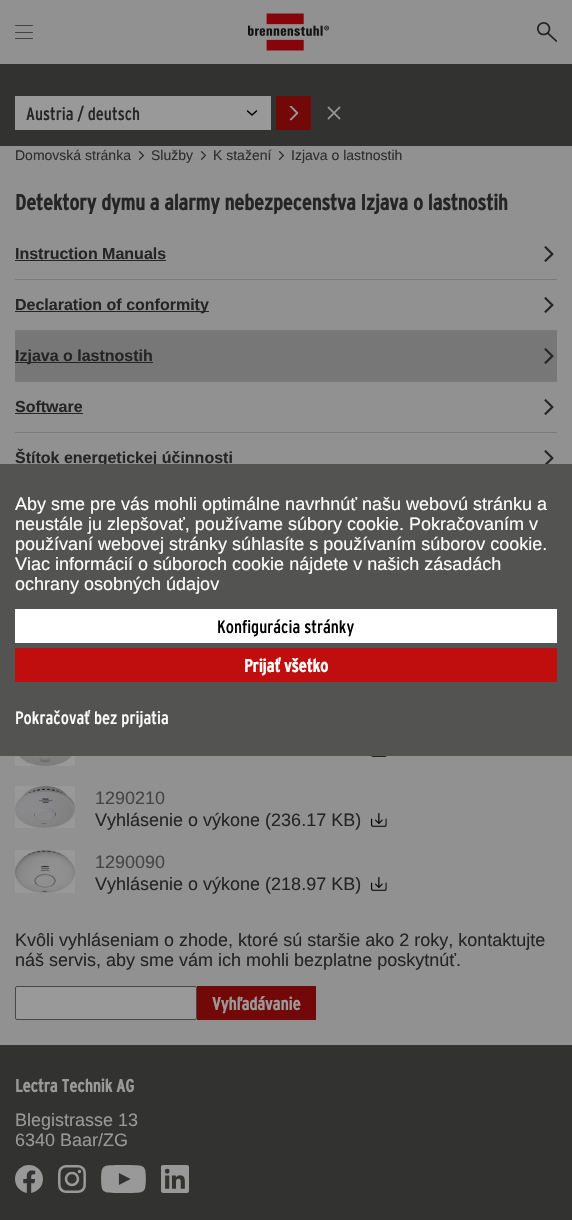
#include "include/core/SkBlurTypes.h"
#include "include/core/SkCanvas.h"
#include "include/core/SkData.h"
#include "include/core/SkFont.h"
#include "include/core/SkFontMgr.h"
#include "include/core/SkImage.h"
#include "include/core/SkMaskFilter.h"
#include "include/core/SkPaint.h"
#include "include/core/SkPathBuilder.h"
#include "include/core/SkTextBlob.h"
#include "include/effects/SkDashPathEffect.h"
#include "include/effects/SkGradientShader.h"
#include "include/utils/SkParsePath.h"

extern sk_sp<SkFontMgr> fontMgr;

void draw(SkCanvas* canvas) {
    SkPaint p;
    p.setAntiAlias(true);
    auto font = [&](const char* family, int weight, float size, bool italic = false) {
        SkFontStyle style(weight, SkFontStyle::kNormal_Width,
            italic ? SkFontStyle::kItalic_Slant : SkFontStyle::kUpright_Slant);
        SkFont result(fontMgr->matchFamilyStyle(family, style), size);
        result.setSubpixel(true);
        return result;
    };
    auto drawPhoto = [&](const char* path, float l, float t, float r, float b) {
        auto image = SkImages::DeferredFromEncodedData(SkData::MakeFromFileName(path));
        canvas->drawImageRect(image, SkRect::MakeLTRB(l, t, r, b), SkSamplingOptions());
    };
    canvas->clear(0xFF919191);
    p.setColor(0xFF434342);
    canvas->drawRoundRect(SkRect::MakeLTRB(15, 25, 33, 26), 0.5f, 0.5f, p);
    canvas->drawRoundRect(SkRect::MakeLTRB(15, 32, 33, 33), 0.5f, 0.5f, p);
    canvas->drawRoundRect(SkRect::MakeLTRB(15, 38, 33, 39), 0.5f, 0.5f, p);
    drawPhoto("media/1.png", 248, 13, 329, 51);
    drawPhoto("media/2.png", 537, 22, 557, 42);
    p.setColor(0xFF323231);
    canvas->drawRect(SkRect::MakeLTRB(0, 64, 572, 146), p);
    p.setColor(0xFF999999);
    canvas->drawRect(SkRect::MakeLTRB(15, 96, 271, 130), p);
    p.setStyle(SkPaint::kStroke_Style);
    p.setStrokeWidth(1.5f);
    p.setStrokeCap(SkPaint::kRound_Cap);
    p.setStrokeJoin(SkPaint::kRound_Join);
    p.setColor(0xFF000000);
    canvas->drawPath(SkPathBuilder().moveTo(247.5f, 111).lineTo(252, 115).lineTo(256.5f, 111).detach(), p);
    auto font1 = font("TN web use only", 400, 18);
    p.setStyle(SkPaint::kFill_Style);
    p.setColor(0xFF262525);
    canvas->drawString("Austria / deutsch", 26, 120, font1, p);
    p.setColor(0xFF730808);
    canvas->drawRect(SkRect::MakeLTRB(276, 96, 311, 130), p);
    drawPhoto("media/3.png", 289, 106, 299, 121);
    drawPhoto("media/4.png", 327, 106, 341, 120);
    auto font2 = font("Liberation Sans", 400, 14);
    p.setColor(0xFF2E2E2E);
    canvas->drawString("Domovská stránka", 15, 160, font2, p);
    drawPhoto("media/5.png", 138, 151, 145, 160);
    canvas->drawString("Služby", 151, 160, font2, p);
    drawPhoto("media/5.png", 200, 151, 207, 160);
    canvas->drawString("K stažení", 213, 160, font2, p);
    drawPhoto("media/5.png", 278, 151, 285, 160);
    canvas->drawString("Izjava o lastnostih", 291, 160, font2, p);
    auto font3 = font("TN web use only", 700, 22);
    p.setColor(0xFF262525);
    canvas->drawString("Detektory dymu a alarmy nebezpecenstva Izjava o lastnostih", 15, 210, font3, p);
    p.setColor(0xFF7A7A7A);
    canvas->drawRect(SkRect::MakeLTRB(15, 279, 557, 280), p);
    auto font4 = font("Liberation Sans", 700, 16);
    p.setColor(0xFF262525);
    canvas->drawString("Instruction Manuals", 15, 259, font4, p);
    canvas->drawRect(SkRect::MakeLTRB(15, 260, 166, 261), p);
    drawPhoto("media/6.png", 544, 246, 554, 262);
    p.setColor(0xFF7A7A7A);
    canvas->drawRect(SkRect::MakeLTRB(15, 330, 557, 331), p);
    p.setColor(0xFF262525);
    canvas->drawRect(SkRect::MakeLTRB(15, 311, 209, 312), p);
    canvas->drawString("Declaration of conformity", 15, 310, font4, p);
    drawPhoto("media/6.png", 544, 297, 554, 313);
    {
        const struct { float l, t, r, b; SkColor color; } items[] = {
            {15, 331, 557, 381, 0xFF777777},
            {15, 381, 557, 382, 0xFF7A7A7A},
            {15, 362, 153, 363, 0xFF262525},
        };
        for (auto [l, t, r, b, color] : items) {
            p.setColor(color);
            canvas->drawRect(SkRect::MakeLTRB(l, t, r, b), p);
        }
    }
    canvas->drawString("Izjava o lastnostih", 15, 361, font4, p);
    drawPhoto("media/7.png", 544, 348, 554, 364);
    p.setColor(0xFF7A7A7A);
    canvas->drawRect(SkRect::MakeLTRB(15, 432, 557, 433), p);
    p.setColor(0xFF262525);
    canvas->drawString("Software", 15, 412, font4, p);
    canvas->drawRect(SkRect::MakeLTRB(15, 413, 83, 414), p);
    drawPhoto("media/6.png", 544, 399, 554, 415);
    canvas->drawString("Štítok energetickej účinnosti", 15, 463, font4, p);
    drawPhoto("media/8.png", 544, 450, 554, 464);
    drawPhoto("media/9.png", 15, 756, 75, 766);
    drawPhoto("media/10.png", 371, 756, 387, 757);
    drawPhoto("media/11.png", 15, 786, 75, 828);
    auto font5 = font("Liberation Sans", 400, 18);
    p.setColor(0xFF454545);
    canvas->drawString("1290210", 95, 804, font5, p);
    p.setColor(0xFF262525);
    canvas->drawString("Vyhlásenie o výkone (236.17 KB)", 95, 826, font5, p);
    drawPhoto("media/12.png", 371, 813, 387, 827);
    drawPhoto("media/13.png", 15, 850, 75, 893);
    p.setColor(0xFF454545);
    canvas->drawString("1290090", 95, 868, font5, p);
    p.setColor(0xFF262525);
    canvas->drawString("Vyhlásenie o výkone (218.97 KB)", 95, 890, font5, p);
    drawPhoto("media/12.png", 371, 877, 387, 891);
    canvas->drawString("Kvôli vyhláseniam o zhode, ktoré sú staršie ako 2 roky, kontaktujte", 15, 946, font5, p);
    canvas->drawString("náš servis, aby sme vám ich mohli bezplatne poskytnúť.", 15, 966, font5, p);
    p.setColor(0xFF999999);
    canvas->drawRoundRect(SkRect::MakeLTRB(15.5f, 986.5f, 196.5f, 1019.5f), 1.5f, 1.5f, p);
    p.setStyle(SkPaint::kStroke_Style);
    p.setStrokeWidth(1);
    p.setStrokeCap(SkPaint::kButt_Cap);
    p.setStrokeJoin(SkPaint::kMiter_Join);
    p.setColor(0xFF474747);
    canvas->drawRoundRect(SkRect::MakeLTRB(15.5f, 986.5f, 196.5f, 1019.5f), 1.5f, 1.5f, p);
    p.setStyle(SkPaint::kFill_Style);
    p.setColor(0xFF730808);
    canvas->drawRect(SkRect::MakeLTRB(197, 986, 316, 1020), p);
    auto font6 = font("TN web use only", 700, 18);
    p.setColor(0xFF999999);
    canvas->drawString("Vyhľadávanie", 212, 1010, font6, p);
    p.setColor(0xFF535352);
    canvas->drawRect(SkRect::MakeLTRB(0, 464, 572, 756), p);
    p.setColor(0xFFFFFFFF);
    {
        const struct { const char* s; float x, y; } items[] = {
            {"Aby sme pre vás mohli optimálne navrhnúť našu webovú stránku a", 15, 510},
            {"neustále ju zlepšovať, používame súbory cookie. Pokračovaním v", 15, 530},
            {"používaní webovej stránky súhlasíte s používaním súborov cookie.", 15, 550},
            {"Viac informácií o súboroch cookie nájdete v našich zásadách", 15, 570},
            {"ochrany osobných údajov", 15, 590},
        };
        for (auto [s, x, y] : items) {
            canvas->drawString(s, x, y, font5, p);
        }
    }
    canvas->drawRect(SkRect::MakeLTRB(15, 609, 557, 643), p);
    p.setColor(0xFF000000);
    canvas->drawString("Konfigurácia stránky", 217, 633, font1, p);
    p.setColor(0xFFC00D0D);
    canvas->drawRect(SkRect::MakeLTRB(15, 648, 557, 682), p);
    p.setColor(0xFFFFFFFF);
    canvas->drawString("Prijať všetko", 244, 672, font6, p);
    canvas->drawString("Pokračovať bez prijatia", 15, 724, font1, p);
    p.setColor(0xFF323231);
    canvas->drawRect(SkRect::MakeLTRB(0, 1045, 572, 1220), p);
    p.setColor(0xFF999999);
    canvas->drawString("Lectra Technik AG", 15, 1092, font6, p);
    canvas->drawString("Blegistrasse 13", 15, 1126, font5, p);
    canvas->drawString("6340 Baar/ZG", 15, 1146, font5, p);
    drawPhoto("media/14.png", 15, 1165, 43, 1193);
    drawPhoto("media/15.png", 58, 1165, 86, 1193);
    drawPhoto("media/16.png", 101, 1165, 146, 1193);
    drawPhoto("media/17.png", 161, 1165, 189, 1193);
}
